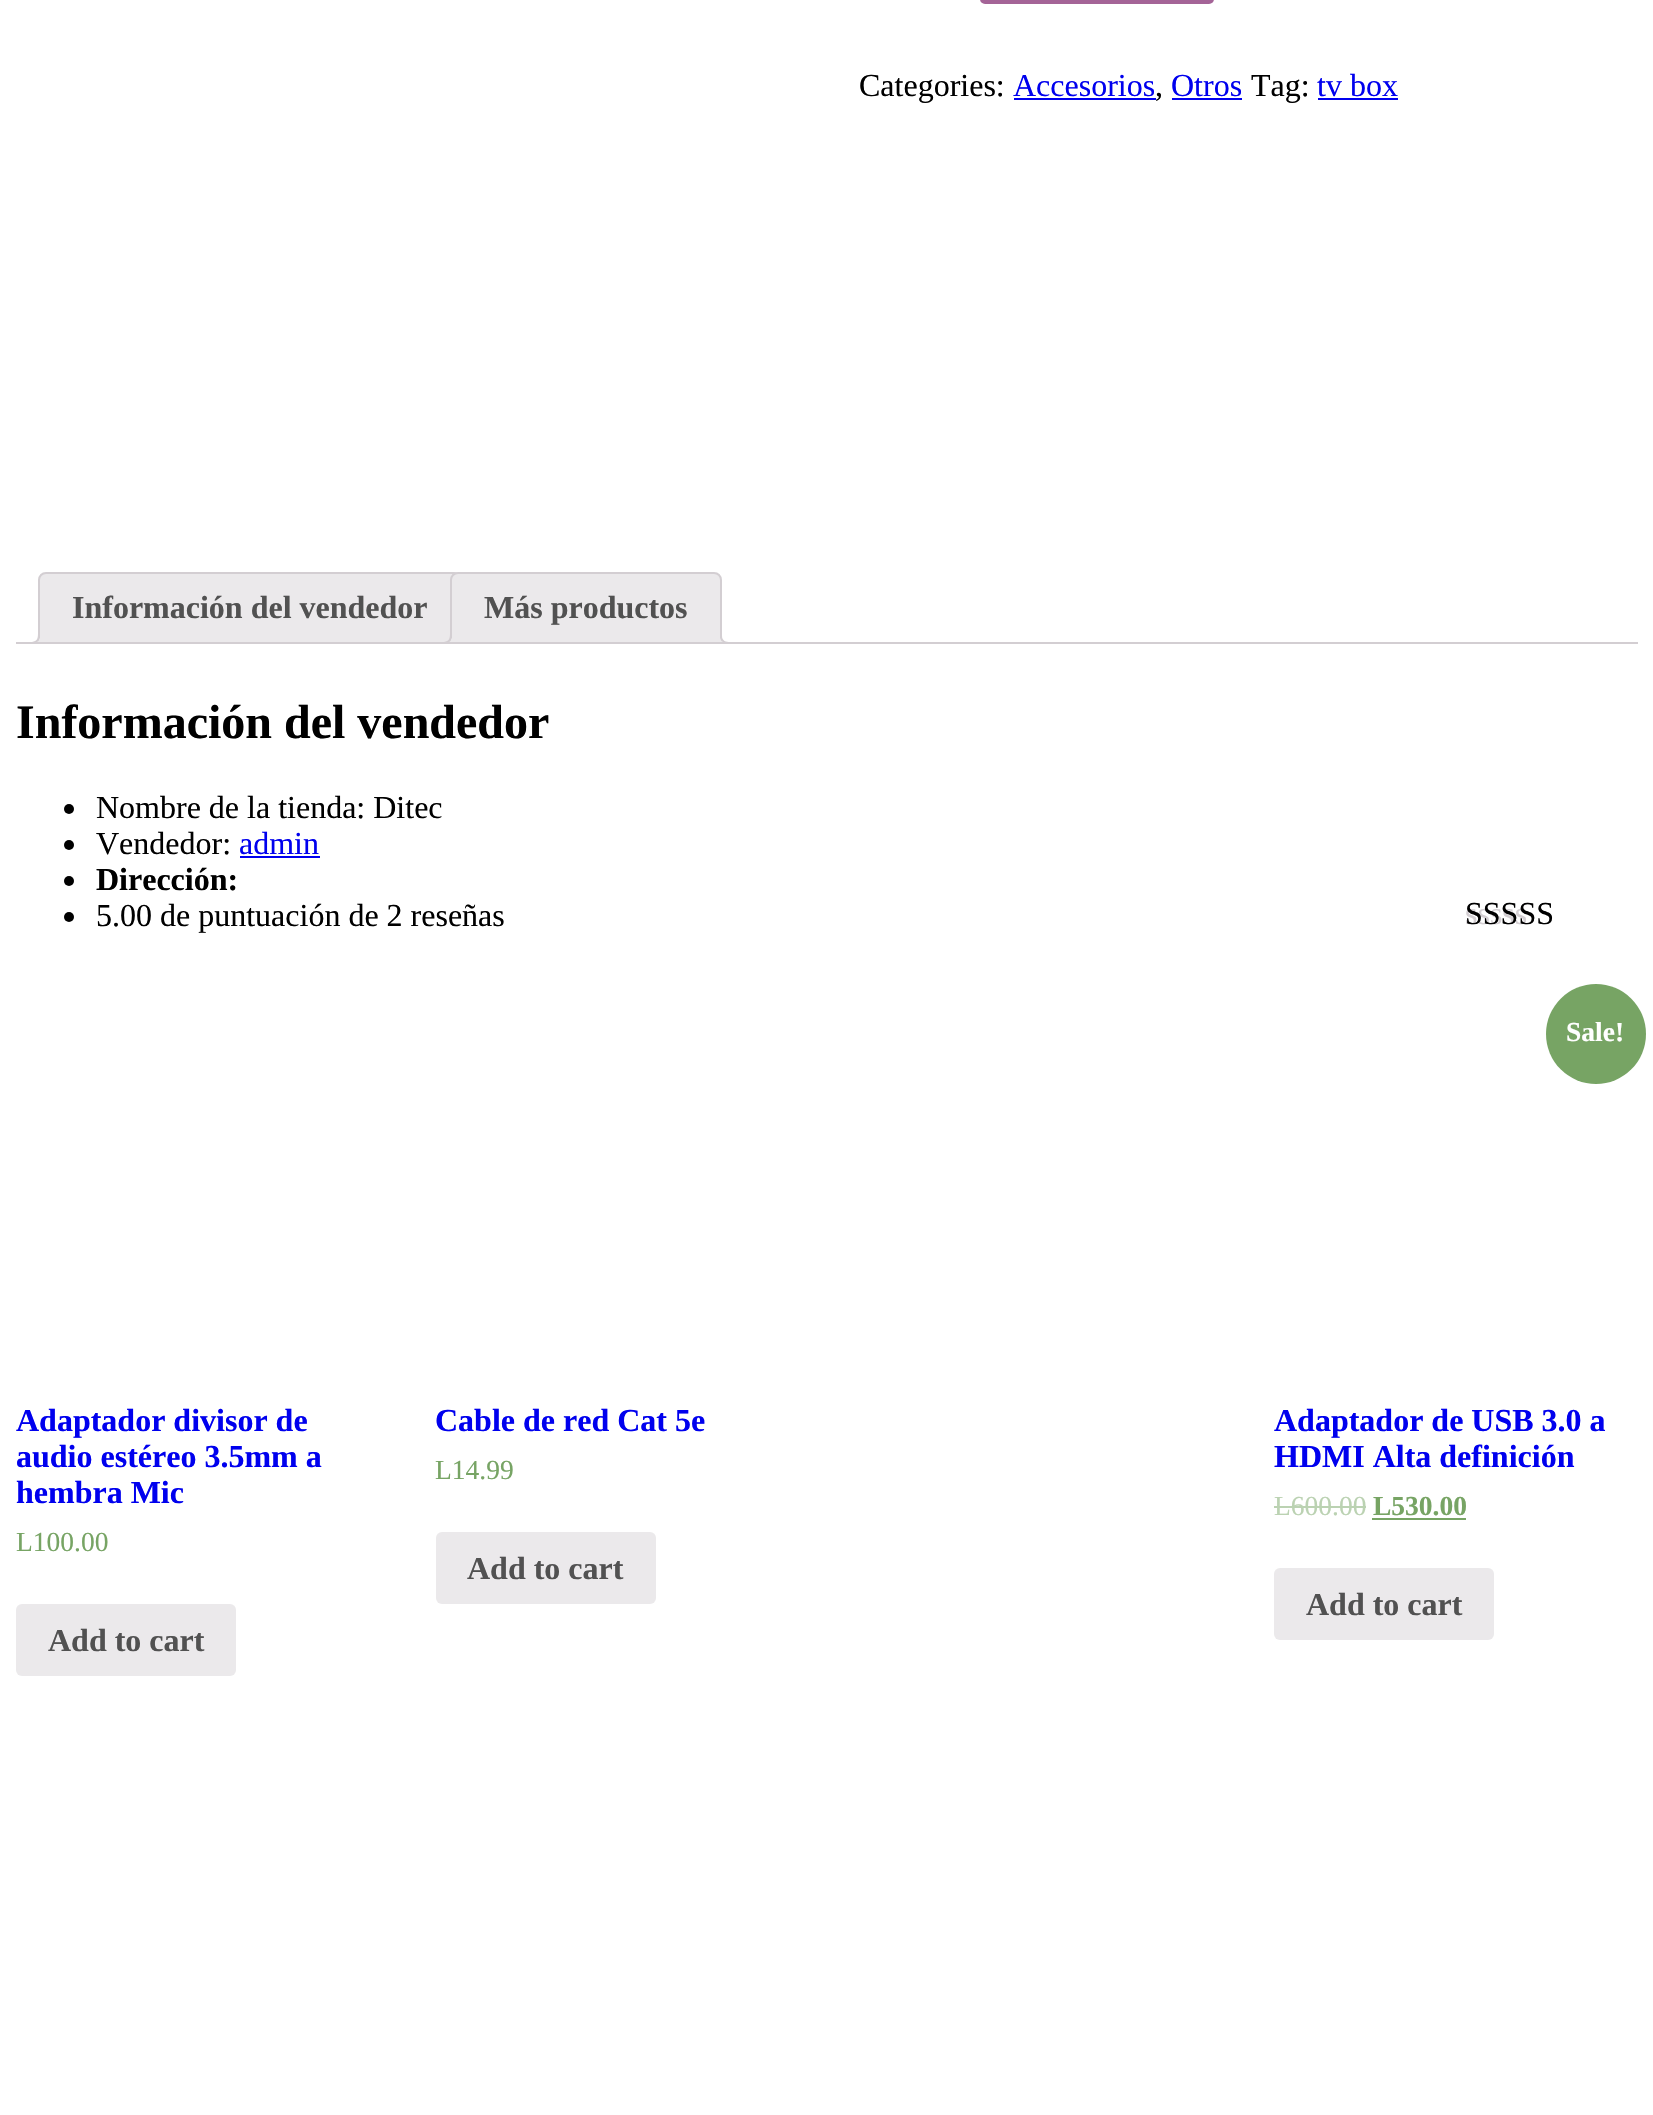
#include "include/core/SkBlurTypes.h"
#include "include/core/SkCanvas.h"
#include "include/core/SkData.h"
#include "include/core/SkFont.h"
#include "include/core/SkFontMgr.h"
#include "include/core/SkImage.h"
#include "include/core/SkMaskFilter.h"
#include "include/core/SkPaint.h"
#include "include/core/SkPathBuilder.h"
#include "include/core/SkTextBlob.h"
#include "include/effects/SkDashPathEffect.h"
#include "include/effects/SkGradientShader.h"
#include "include/utils/SkParsePath.h"

extern sk_sp<SkFontMgr> fontMgr;

void draw(SkCanvas* canvas) {
    SkPaint p;
    p.setAntiAlias(true);
    auto font = [&](const char* family, int weight, float size, bool italic = false) {
        SkFontStyle style(weight, SkFontStyle::kNormal_Width,
            italic ? SkFontStyle::kItalic_Slant : SkFontStyle::kUpright_Slant);
        SkFont result(fontMgr->matchFamilyStyle(family, style), size);
        result.setSubpixel(true);
        return result;
    };
    canvas->clear(0xFFFFFFFF);
    p.setColor(0xFFA46497);
    canvas->drawRoundRect(SkRect::MakeLTRB(980, -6, 1214, 4), 6, 6, p);
    auto font1 = font("Liberation Serif", 400, 32);
    p.setColor(0xFF000000);
    canvas->drawString("Categories:", 859, 96, font1, p);
    p.setColor(0xFF0000EE);
    canvas->drawString("Accesorios", 1013, 96, font1, p);
    p.setColor(0xFF000000);
    canvas->drawString(",", 1155, 96, font1, p);
    p.setColor(0xFF0000EE);
    canvas->drawRect(SkRect::MakeLTRB(1014, 98, 1156, 100), p);
    canvas->drawRect(SkRect::MakeLTRB(1172, 98, 1242, 100), p);
    canvas->drawString("Otros", 1171, 96, font1, p);
    p.setColor(0xFF000000);
    canvas->drawString("Tag:", 1251, 96, font1, p);
    p.setColor(0xFF0000EE);
    canvas->drawString("tv box", 1317, 96, font1, p);
    canvas->drawRect(SkRect::MakeLTRB(1318, 98, 1398, 100), p);
    p.setColor(0xFFEBE9EB);
    canvas->drawPath(SkPathBuilder().moveTo(46, 573).lineTo(454, 573).cubicTo(458, 573, 461, 576, 461, 580).lineTo(461, 643).lineTo(39, 643).lineTo(39, 580).cubicTo(39, 576, 42, 573, 46, 573).close().detach(), p);
    p.setStyle(SkPaint::kStroke_Style);
    p.setStrokeWidth(2);
    p.setColor(0xFFD3CED2);
    canvas->drawPath(SkPathBuilder().moveTo(46, 573).lineTo(454, 573).cubicTo(458, 573, 461, 576, 461, 580).lineTo(461, 643).lineTo(39, 643).lineTo(39, 580).cubicTo(39, 576, 42, 573, 46, 573).close().detach(), p);
    auto font2 = font("Liberation Serif", 700, 32);
    p.setStyle(SkPaint::kFill_Style);
    p.setColor(0xFF515151);
    canvas->drawString("Información del vendedor", 72, 618, font2, p);
    canvas->save();
    canvas->clipRect(SkRect::MakeLTRB(16, 572, 1638, 644));
    p.setColor(0xFFEBE9EB);
    canvas->drawPath(SkPathBuilder().moveTo(34, 643.5f).lineTo(34, 648).cubicTo(41, 648, 44, 645, 44, 638).lineTo(39.5f, 638).cubicTo(39, 641, 37, 643, 34, 643.5f).close().detach(), p);
    canvas->restore();
    p.setColor(0xFFD3CED2);
    canvas->drawPath(SkPathBuilder(SkPathFillType::kEvenOdd).moveTo(30, 634).lineTo(40, 634).cubicTo(40, 641, 37, 644, 30, 644).close().moveTo(30, 634).lineTo(38, 634).cubicTo(38, 640, 36, 642, 30, 642).close().detach(), p);
    p.setColor(0xFFEBE9EB);
    canvas->drawPath(SkPathBuilder().moveTo(458, 573).lineTo(714, 573).cubicTo(718, 573, 721, 576, 721, 580).lineTo(721, 643).lineTo(451, 643).lineTo(451, 580).cubicTo(451, 576, 454, 573, 458, 573).close().detach(), p);
    p.setStyle(SkPaint::kStroke_Style);
    p.setColor(0xFFD3CED2);
    canvas->drawPath(SkPathBuilder().moveTo(458, 573).lineTo(714, 573).cubicTo(718, 573, 721, 576, 721, 580).lineTo(721, 643).lineTo(451, 643).lineTo(451, 580).cubicTo(451, 576, 454, 573, 458, 573).close().detach(), p);
    p.setStyle(SkPaint::kFill_Style);
    p.setColor(0xFF515151);
    canvas->drawString("Más productos", 484, 618, font2, p);
    canvas->save();
    canvas->clipRect(SkRect::MakeLTRB(16, 572, 1638, 644));
    p.setColor(0xFFEBE9EB);
    canvas->drawPath(SkPathBuilder().moveTo(446, 643.5f).lineTo(446, 648).cubicTo(453, 648, 456, 645, 456, 638).lineTo(451.5f, 638).cubicTo(451, 641, 449, 643, 446, 643.5f).close().detach(), p);
    canvas->restore();
    p.setColor(0xFFD3CED2);
    canvas->drawPath(SkPathBuilder(SkPathFillType::kEvenOdd).moveTo(442, 634).lineTo(452, 634).cubicTo(452, 641, 449, 644, 442, 644).close().moveTo(442, 634).lineTo(450, 634).cubicTo(450, 640, 448, 642, 442, 642).close().detach(), p);
    canvas->save();
    canvas->clipRect(SkRect::MakeLTRB(16, 572, 1638, 644));
    p.setColor(0xFFEBE9EB);
    canvas->drawPath(SkPathBuilder().moveTo(716, 638).cubicTo(716, 645, 719, 648, 726, 648).lineTo(726, 643.5f).cubicTo(723, 643, 721, 641, 720.5f, 638).close().detach(), p);
    canvas->restore();
    p.setColor(0xFFD3CED2);
    canvas->drawPath(SkPathBuilder(SkPathFillType::kEvenOdd).moveTo(720, 634).lineTo(730, 634).lineTo(730, 644).cubicTo(725, 644, 720, 642, 720, 636).close().moveTo(722, 634).lineTo(730, 634).lineTo(730, 642).cubicTo(726, 642, 722, 641, 722, 636).close().detach(), p);
    canvas->drawRect(SkRect::MakeLTRB(16, 642, 1638, 644), p);
    auto font3 = font("Liberation Serif", 700, 48);
    p.setColor(0xFF000000);
    canvas->drawString("Información del vendedor", 16, 738, font3, p);
    canvas->drawCircle(69, 809, 5, p);
    canvas->drawString("Nombre de la tienda: Ditec", 96, 818, font1, p);
    canvas->drawCircle(69, 845, 5, p);
    canvas->drawString("Vendedor:", 96, 854, font1, p);
    p.setColor(0xFF0000EE);
    canvas->drawString("admin", 239, 854, font1, p);
    canvas->drawRect(SkRect::MakeLTRB(240, 856, 320, 858), p);
    p.setColor(0xFF000000);
    canvas->drawCircle(69, 881, 5, p);
    canvas->drawString("Dirección:", 96, 890, font2, p);
    canvas->drawCircle(69, 917, 5, p);
    canvas->drawString("5.00 de puntuación de 2 reseñas", 96, 926, font1, p);
    p.setColor(0xFFD3CED2);
    canvas->drawString("sssss", 1465, 924, font1, p);
    p.setColor(0xFF000000);
    canvas->drawString("SSSSS", 1465, 924, font1, p);
    p.setColor(0xFF0000EE);
    {
        const struct { const char* s; float x, y; } items[] = {
            {"Adaptador divisor de", 16, 1431},
            {"audio estéreo 3.5mm a", 16, 1467},
            {"hembra Mic", 16, 1503},
        };
        for (auto [s, x, y] : items) {
            canvas->drawString(s, x, y, font2, p);
        }
    }
    auto font4 = font("Liberation Serif", 400, 27.5f);
    p.setColor(0xFF77A464);
    canvas->drawString("L100.00", 16, 1551, font4, p);
    p.setColor(0xFFEBE9EB);
    canvas->drawRoundRect(SkRect::MakeLTRB(16, 1604, 236, 1676), 6, 6, p);
    p.setColor(0xFF515151);
    canvas->drawString("Add to cart", 48, 1651, font2, p);
    p.setColor(0xFF0000EE);
    canvas->drawString("Cable de red Cat 5e", 435, 1431, font2, p);
    p.setColor(0xFF77A464);
    canvas->drawString("L14.99", 435, 1479, font4, p);
    p.setColor(0xFFEBE9EB);
    canvas->drawRoundRect(SkRect::MakeLTRB(436, 1532, 656, 1604), 6, 6, p);
    p.setColor(0xFF515151);
    canvas->drawString("Add to cart", 467, 1579, font2, p);
    p.setColor(0xFF77A464);
    canvas->drawCircle(1596, 1034, 50, p);
    auto font5 = font("Liberation Serif", 700, 27.5f);
    p.setColor(0xFFFFFFFF);
    canvas->drawString("Sale!", 1566, 1041, font5, p);
    p.setColor(0xFF0000EE);
    canvas->drawString("Adaptador de USB 3.0 a", 1274, 1431, font2, p);
    canvas->drawString("HDMI Alta definición", 1274, 1467, font2, p);
    p.setColor(0xFFBBD2B2);
    canvas->drawString("L600.00", 1274, 1515, font4, p);
    canvas->drawRect(SkRect::MakeLTRB(1274, 1506, 1366, 1508), p);
    p.setColor(0xFF77A464);
    canvas->drawString("L530.00", 1373, 1515, font5, p);
    canvas->drawRect(SkRect::MakeLTRB(1372, 1518, 1466, 1520), p);
    p.setColor(0xFFEBE9EB);
    canvas->drawRoundRect(SkRect::MakeLTRB(1274, 1568, 1494, 1640), 6, 6, p);
    p.setColor(0xFF515151);
    canvas->drawString("Add to cart", 1306, 1615, font2, p);
}
